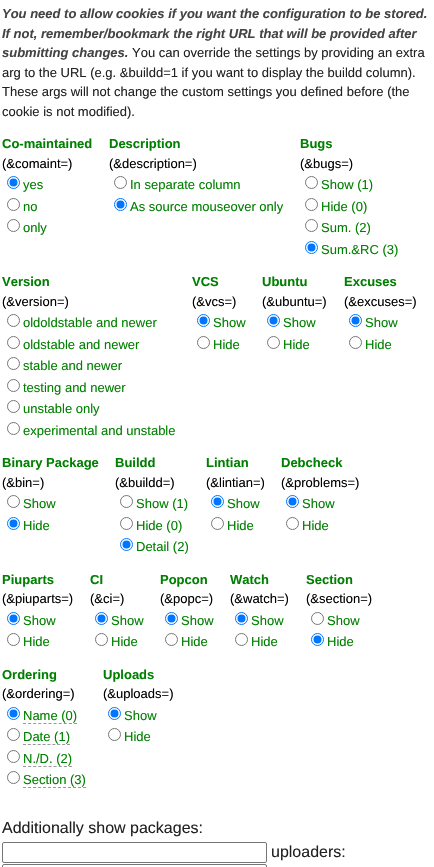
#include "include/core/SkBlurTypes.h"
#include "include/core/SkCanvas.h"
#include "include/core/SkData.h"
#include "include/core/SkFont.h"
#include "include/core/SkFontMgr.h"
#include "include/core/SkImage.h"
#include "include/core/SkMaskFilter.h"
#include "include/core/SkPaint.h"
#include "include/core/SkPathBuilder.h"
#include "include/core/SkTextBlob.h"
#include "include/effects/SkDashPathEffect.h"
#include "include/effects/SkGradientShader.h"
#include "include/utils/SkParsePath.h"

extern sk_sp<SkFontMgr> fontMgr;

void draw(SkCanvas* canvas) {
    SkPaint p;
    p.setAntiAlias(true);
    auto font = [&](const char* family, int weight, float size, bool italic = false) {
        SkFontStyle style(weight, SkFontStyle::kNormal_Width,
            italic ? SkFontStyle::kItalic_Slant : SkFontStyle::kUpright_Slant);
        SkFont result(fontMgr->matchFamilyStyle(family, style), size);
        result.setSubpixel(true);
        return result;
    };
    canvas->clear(0xFFFFFFFF);
    auto font1 = font("Liberation Sans", 700, 13, true);
    p.setColor(0xFF444444);
    {
        const struct { const char* s; float x, y; } items[] = {
            {"You need to allow cookies if you want the configuration to be stored.", 2, 18},
            {"If not, remember/bookmark the right URL that will be provided after", 2, 38},
            {"submitting changes.", 2, 57},
        };
        for (auto [s, x, y] : items) {
            canvas->drawString(s, x, y, font1, p);
        }
    }
    auto font2 = font("Liberation Sans", 400, 13);
    p.setColor(0xFF222222);
    {
        const struct { const char* s; float x, y; } items[] = {
            {"You can override the settings by providing an extra", 132, 57},
            {"arg to the URL (e.g. &buildd=1 if you want to display the buildd column).", 2, 77},
            {"These args will not change the custom settings you defined before (the", 2, 96},
            {"cookie is not modified).", 2, 116},
        };
        for (auto [s, x, y] : items) {
            canvas->drawString(s, x, y, font2, p);
        }
    }
    auto font3 = font("Liberation Sans", 700, 13);
    p.setColor(0xFF008000);
    canvas->drawString("Co-maintained", 2, 148, font3, p);
    p.setColor(0xFF000000);
    canvas->drawString("(&comaint=)", 2, 168, font2, p);
    p.setStyle(SkPaint::kStroke_Style);
    p.setStrokeWidth(1);
    p.setColor(0xFF0075FF);
    canvas->drawCircle(13.5f, 182.5f, 6, p);
    p.setStyle(SkPaint::kFill_Style);
    canvas->drawCircle(13.5f, 182.5f, 4, p);
    p.setColor(0xFF008000);
    canvas->drawString("yes", 23, 189, font2, p);
    p.setStyle(SkPaint::kStroke_Style);
    p.setColor(0xFF767676);
    canvas->drawCircle(13.5f, 204.5f, 6, p);
    p.setStyle(SkPaint::kFill_Style);
    p.setColor(0xFF008000);
    canvas->drawString("no", 23, 211, font2, p);
    p.setStyle(SkPaint::kStroke_Style);
    p.setColor(0xFF767676);
    canvas->drawCircle(13.5f, 225.5f, 6, p);
    p.setStyle(SkPaint::kFill_Style);
    p.setColor(0xFF008000);
    canvas->drawString("only", 23, 232, font2, p);
    canvas->drawString("Description", 109, 148, font3, p);
    p.setColor(0xFF000000);
    canvas->drawString("(&description=)", 109, 168, font2, p);
    p.setStyle(SkPaint::kStroke_Style);
    p.setColor(0xFF767676);
    canvas->drawCircle(120.5f, 182.5f, 6, p);
    p.setStyle(SkPaint::kFill_Style);
    p.setColor(0xFF008000);
    canvas->drawString("In separate column", 130, 189, font2, p);
    p.setStyle(SkPaint::kStroke_Style);
    p.setColor(0xFF0075FF);
    canvas->drawCircle(120.5f, 204.5f, 6, p);
    p.setStyle(SkPaint::kFill_Style);
    canvas->drawCircle(120.5f, 204.5f, 4, p);
    p.setColor(0xFF008000);
    canvas->drawString("As source mouseover only", 130, 211, font2, p);
    canvas->drawString("Bugs", 300, 148, font3, p);
    p.setColor(0xFF000000);
    canvas->drawString("(&bugs=)", 300, 168, font2, p);
    p.setStyle(SkPaint::kStroke_Style);
    p.setColor(0xFF767676);
    canvas->drawCircle(311.5f, 182.5f, 6, p);
    p.setStyle(SkPaint::kFill_Style);
    p.setColor(0xFF008000);
    canvas->drawString("Show (1)", 321, 189, font2, p);
    p.setStyle(SkPaint::kStroke_Style);
    p.setColor(0xFF767676);
    canvas->drawCircle(311.5f, 204.5f, 6, p);
    p.setStyle(SkPaint::kFill_Style);
    p.setColor(0xFF008000);
    canvas->drawString("Hide (0)", 321, 211, font2, p);
    p.setStyle(SkPaint::kStroke_Style);
    p.setColor(0xFF767676);
    canvas->drawCircle(311.5f, 225.5f, 6, p);
    p.setStyle(SkPaint::kFill_Style);
    p.setColor(0xFF008000);
    canvas->drawString("Sum. (2)", 321, 232, font2, p);
    p.setStyle(SkPaint::kStroke_Style);
    p.setColor(0xFF0075FF);
    canvas->drawCircle(311.5f, 247.5f, 6, p);
    p.setStyle(SkPaint::kFill_Style);
    canvas->drawCircle(311.5f, 247.5f, 4, p);
    p.setColor(0xFF008000);
    canvas->drawString("Sum.&RC (3)", 321, 254, font2, p);
    canvas->drawString("Version", 2, 286, font3, p);
    p.setColor(0xFF000000);
    canvas->drawString("(&version=)", 2, 306, font2, p);
    p.setStyle(SkPaint::kStroke_Style);
    p.setColor(0xFF767676);
    canvas->drawCircle(13.5f, 320.5f, 6, p);
    p.setStyle(SkPaint::kFill_Style);
    p.setColor(0xFF008000);
    canvas->drawString("oldoldstable and newer", 23, 327, font2, p);
    p.setStyle(SkPaint::kStroke_Style);
    p.setColor(0xFF767676);
    canvas->drawCircle(13.5f, 342.5f, 6, p);
    p.setStyle(SkPaint::kFill_Style);
    p.setColor(0xFF008000);
    canvas->drawString("oldstable and newer", 23, 349, font2, p);
    p.setStyle(SkPaint::kStroke_Style);
    p.setColor(0xFF767676);
    canvas->drawCircle(13.5f, 363.5f, 6, p);
    p.setStyle(SkPaint::kFill_Style);
    p.setColor(0xFF008000);
    canvas->drawString("stable and newer", 23, 370, font2, p);
    p.setStyle(SkPaint::kStroke_Style);
    p.setColor(0xFF767676);
    canvas->drawCircle(13.5f, 385.5f, 6, p);
    p.setStyle(SkPaint::kFill_Style);
    p.setColor(0xFF008000);
    canvas->drawString("testing and newer", 23, 392, font2, p);
    p.setStyle(SkPaint::kStroke_Style);
    p.setColor(0xFF767676);
    canvas->drawCircle(13.5f, 406.5f, 6, p);
    p.setStyle(SkPaint::kFill_Style);
    p.setColor(0xFF008000);
    canvas->drawString("unstable only", 23, 413, font2, p);
    p.setStyle(SkPaint::kStroke_Style);
    p.setColor(0xFF767676);
    canvas->drawCircle(13.5f, 428.5f, 6, p);
    p.setStyle(SkPaint::kFill_Style);
    p.setColor(0xFF008000);
    canvas->drawString("experimental and unstable", 23, 435, font2, p);
    canvas->drawString("VCS", 192, 286, font3, p);
    p.setColor(0xFF000000);
    canvas->drawString("(&vcs=)", 192, 306, font2, p);
    p.setStyle(SkPaint::kStroke_Style);
    p.setColor(0xFF0075FF);
    canvas->drawCircle(203.5f, 320.5f, 6, p);
    p.setStyle(SkPaint::kFill_Style);
    canvas->drawCircle(203.5f, 320.5f, 4, p);
    p.setColor(0xFF008000);
    canvas->drawString("Show", 213, 327, font2, p);
    p.setStyle(SkPaint::kStroke_Style);
    p.setColor(0xFF767676);
    canvas->drawCircle(203.5f, 342.5f, 6, p);
    p.setStyle(SkPaint::kFill_Style);
    p.setColor(0xFF008000);
    canvas->drawString("Hide", 213, 349, font2, p);
    canvas->drawString("Ubuntu", 262, 286, font3, p);
    p.setColor(0xFF000000);
    canvas->drawString("(&ubuntu=)", 262, 306, font2, p);
    p.setStyle(SkPaint::kStroke_Style);
    p.setColor(0xFF0075FF);
    canvas->drawCircle(273.5f, 320.5f, 6, p);
    p.setStyle(SkPaint::kFill_Style);
    canvas->drawCircle(273.5f, 320.5f, 4, p);
    p.setColor(0xFF008000);
    canvas->drawString("Show", 283, 327, font2, p);
    p.setStyle(SkPaint::kStroke_Style);
    p.setColor(0xFF767676);
    canvas->drawCircle(273.5f, 342.5f, 6, p);
    p.setStyle(SkPaint::kFill_Style);
    p.setColor(0xFF008000);
    canvas->drawString("Hide", 283, 349, font2, p);
    canvas->drawString("Excuses", 344, 286, font3, p);
    p.setColor(0xFF000000);
    canvas->drawString("(&excuses=)", 344, 306, font2, p);
    p.setStyle(SkPaint::kStroke_Style);
    p.setColor(0xFF0075FF);
    canvas->drawCircle(355.5f, 320.5f, 6, p);
    p.setStyle(SkPaint::kFill_Style);
    canvas->drawCircle(355.5f, 320.5f, 4, p);
    p.setColor(0xFF008000);
    canvas->drawString("Show", 365, 327, font2, p);
    p.setStyle(SkPaint::kStroke_Style);
    p.setColor(0xFF767676);
    canvas->drawCircle(355.5f, 342.5f, 6, p);
    p.setStyle(SkPaint::kFill_Style);
    p.setColor(0xFF008000);
    canvas->drawString("Hide", 365, 349, font2, p);
    canvas->drawString("Binary Package", 2, 467, font3, p);
    p.setColor(0xFF000000);
    canvas->drawString("(&bin=)", 2, 487, font2, p);
    p.setStyle(SkPaint::kStroke_Style);
    p.setColor(0xFF767676);
    canvas->drawCircle(13.5f, 501.5f, 6, p);
    p.setStyle(SkPaint::kFill_Style);
    p.setColor(0xFF008000);
    canvas->drawString("Show", 23, 508, font2, p);
    p.setStyle(SkPaint::kStroke_Style);
    p.setColor(0xFF0075FF);
    canvas->drawCircle(13.5f, 523.5f, 6, p);
    p.setStyle(SkPaint::kFill_Style);
    canvas->drawCircle(13.5f, 523.5f, 4, p);
    p.setColor(0xFF008000);
    canvas->drawString("Hide", 23, 530, font2, p);
    canvas->drawString("Buildd", 115, 467, font3, p);
    p.setColor(0xFF000000);
    canvas->drawString("(&buildd=)", 115, 487, font2, p);
    p.setStyle(SkPaint::kStroke_Style);
    p.setColor(0xFF767676);
    canvas->drawCircle(126.5f, 501.5f, 6, p);
    p.setStyle(SkPaint::kFill_Style);
    p.setColor(0xFF008000);
    canvas->drawString("Show (1)", 136, 508, font2, p);
    p.setStyle(SkPaint::kStroke_Style);
    p.setColor(0xFF767676);
    canvas->drawCircle(126.5f, 523.5f, 6, p);
    p.setStyle(SkPaint::kFill_Style);
    p.setColor(0xFF008000);
    canvas->drawString("Hide (0)", 136, 530, font2, p);
    p.setStyle(SkPaint::kStroke_Style);
    p.setColor(0xFF0075FF);
    canvas->drawCircle(126.5f, 544.5f, 6, p);
    p.setStyle(SkPaint::kFill_Style);
    canvas->drawCircle(126.5f, 544.5f, 4, p);
    p.setColor(0xFF008000);
    canvas->drawString("Detail (2)", 136, 551, font2, p);
    canvas->drawString("Lintian", 206, 467, font3, p);
    p.setColor(0xFF000000);
    canvas->drawString("(&lintian=)", 206, 487, font2, p);
    p.setStyle(SkPaint::kStroke_Style);
    p.setColor(0xFF0075FF);
    canvas->drawCircle(217.5f, 501.5f, 6, p);
    p.setStyle(SkPaint::kFill_Style);
    canvas->drawCircle(217.5f, 501.5f, 4, p);
    p.setColor(0xFF008000);
    canvas->drawString("Show", 227, 508, font2, p);
    p.setStyle(SkPaint::kStroke_Style);
    p.setColor(0xFF767676);
    canvas->drawCircle(217.5f, 523.5f, 6, p);
    p.setStyle(SkPaint::kFill_Style);
    p.setColor(0xFF008000);
    canvas->drawString("Hide", 227, 530, font2, p);
    canvas->drawString("Debcheck", 281, 467, font3, p);
    p.setColor(0xFF000000);
    canvas->drawString("(&problems=)", 281, 487, font2, p);
    p.setStyle(SkPaint::kStroke_Style);
    p.setColor(0xFF0075FF);
    canvas->drawCircle(292.5f, 501.5f, 6, p);
    p.setStyle(SkPaint::kFill_Style);
    canvas->drawCircle(292.5f, 501.5f, 4, p);
    p.setColor(0xFF008000);
    canvas->drawString("Show", 302, 508, font2, p);
    p.setStyle(SkPaint::kStroke_Style);
    p.setColor(0xFF767676);
    canvas->drawCircle(292.5f, 523.5f, 6, p);
    p.setStyle(SkPaint::kFill_Style);
    p.setColor(0xFF008000);
    canvas->drawString("Hide", 302, 530, font2, p);
    canvas->drawString("Piuparts", 2, 584, font3, p);
    p.setColor(0xFF000000);
    canvas->drawString("(&piuparts=)", 2, 603, font2, p);
    p.setStyle(SkPaint::kStroke_Style);
    p.setColor(0xFF0075FF);
    canvas->drawCircle(13.5f, 618.5f, 6, p);
    p.setStyle(SkPaint::kFill_Style);
    canvas->drawCircle(13.5f, 618.5f, 4, p);
    p.setColor(0xFF008000);
    canvas->drawString("Show", 23, 625, font2, p);
    p.setStyle(SkPaint::kStroke_Style);
    p.setColor(0xFF767676);
    canvas->drawCircle(13.5f, 639.5f, 6, p);
    p.setStyle(SkPaint::kFill_Style);
    p.setColor(0xFF008000);
    canvas->drawString("Hide", 23, 646, font2, p);
    canvas->drawString("CI", 90, 584, font3, p);
    p.setColor(0xFF000000);
    canvas->drawString("(&ci=)", 90, 603, font2, p);
    p.setStyle(SkPaint::kStroke_Style);
    p.setColor(0xFF0075FF);
    canvas->drawCircle(101.5f, 618.5f, 6, p);
    p.setStyle(SkPaint::kFill_Style);
    canvas->drawCircle(101.5f, 618.5f, 4, p);
    p.setColor(0xFF008000);
    canvas->drawString("Show", 111, 625, font2, p);
    p.setStyle(SkPaint::kStroke_Style);
    p.setColor(0xFF767676);
    canvas->drawCircle(101.5f, 639.5f, 6, p);
    p.setStyle(SkPaint::kFill_Style);
    p.setColor(0xFF008000);
    canvas->drawString("Hide", 111, 646, font2, p);
    canvas->drawString("Popcon", 160, 584, font3, p);
    p.setColor(0xFF000000);
    canvas->drawString("(&popc=)", 160, 603, font2, p);
    p.setStyle(SkPaint::kStroke_Style);
    p.setColor(0xFF0075FF);
    canvas->drawCircle(171.5f, 618.5f, 6, p);
    p.setStyle(SkPaint::kFill_Style);
    canvas->drawCircle(171.5f, 618.5f, 4, p);
    p.setColor(0xFF008000);
    canvas->drawString("Show", 181, 625, font2, p);
    p.setStyle(SkPaint::kStroke_Style);
    p.setColor(0xFF767676);
    canvas->drawCircle(171.5f, 639.5f, 6, p);
    p.setStyle(SkPaint::kFill_Style);
    p.setColor(0xFF008000);
    canvas->drawString("Hide", 181, 646, font2, p);
    canvas->drawString("Watch", 230, 584, font3, p);
    p.setColor(0xFF000000);
    canvas->drawString("(&watch=)", 230, 603, font2, p);
    p.setStyle(SkPaint::kStroke_Style);
    p.setColor(0xFF0075FF);
    canvas->drawCircle(241.5f, 618.5f, 6, p);
    p.setStyle(SkPaint::kFill_Style);
    canvas->drawCircle(241.5f, 618.5f, 4, p);
    p.setColor(0xFF008000);
    canvas->drawString("Show", 251, 625, font2, p);
    p.setStyle(SkPaint::kStroke_Style);
    p.setColor(0xFF767676);
    canvas->drawCircle(241.5f, 639.5f, 6, p);
    p.setStyle(SkPaint::kFill_Style);
    p.setColor(0xFF008000);
    canvas->drawString("Hide", 251, 646, font2, p);
    canvas->drawString("Section", 306, 584, font3, p);
    p.setColor(0xFF000000);
    canvas->drawString("(&section=)", 306, 603, font2, p);
    p.setStyle(SkPaint::kStroke_Style);
    p.setColor(0xFF767676);
    canvas->drawCircle(317.5f, 618.5f, 6, p);
    p.setStyle(SkPaint::kFill_Style);
    p.setColor(0xFF008000);
    canvas->drawString("Show", 327, 625, font2, p);
    p.setStyle(SkPaint::kStroke_Style);
    p.setColor(0xFF0075FF);
    canvas->drawCircle(317.5f, 639.5f, 6, p);
    p.setStyle(SkPaint::kFill_Style);
    canvas->drawCircle(317.5f, 639.5f, 4, p);
    p.setColor(0xFF008000);
    canvas->drawString("Hide", 327, 646, font2, p);
    canvas->drawString("Ordering", 2, 679, font3, p);
    p.setColor(0xFF000000);
    canvas->drawString("(&ordering=)", 2, 698, font2, p);
    p.setStyle(SkPaint::kStroke_Style);
    p.setColor(0xFF0075FF);
    canvas->drawCircle(13.5f, 713.5f, 6, p);
    p.setStyle(SkPaint::kFill_Style);
    canvas->drawCircle(13.5f, 713.5f, 4, p);
    p.setColor(0xFF008000);
    canvas->drawString("Name (0)", 23, 720, font2, p);
    p.setStyle(SkPaint::kStroke_Style);
    p.setColor(0xFF999999);
    p.setPathEffect(SkDashPathEffect::Make({{3, 2.1f}}, 0));
    canvas->drawPath(SkPathBuilder().moveTo(23, 723.5f).lineTo(77, 723.5f).detach(), p);
    p.setPathEffect(nullptr);
    p.setColor(0xFF767676);
    canvas->drawCircle(13.5f, 734.5f, 6, p);
    p.setStyle(SkPaint::kFill_Style);
    p.setColor(0xFF008000);
    canvas->drawString("Date (1)", 23, 741, font2, p);
    p.setStyle(SkPaint::kStroke_Style);
    p.setColor(0xFF999999);
    p.setPathEffect(SkDashPathEffect::Make({{3, 1.89f}}, 0));
    canvas->drawPath(SkPathBuilder().moveTo(23, 744.5f).lineTo(70, 744.5f).detach(), p);
    p.setPathEffect(nullptr);
    p.setColor(0xFF767676);
    canvas->drawCircle(13.5f, 756.5f, 6, p);
    p.setStyle(SkPaint::kFill_Style);
    p.setColor(0xFF008000);
    canvas->drawString("N./D. (2)", 23, 763, font2, p);
    p.setStyle(SkPaint::kStroke_Style);
    p.setColor(0xFF999999);
    p.setPathEffect(SkDashPathEffect::Make({{3, 2.11f}}, 0));
    canvas->drawPath(SkPathBuilder().moveTo(23, 766.5f).lineTo(72, 766.5f).detach(), p);
    p.setPathEffect(nullptr);
    p.setColor(0xFF767676);
    canvas->drawCircle(13.5f, 777.5f, 6, p);
    p.setStyle(SkPaint::kFill_Style);
    p.setColor(0xFF008000);
    canvas->drawString("Section (3)", 23, 784, font2, p);
    p.setStyle(SkPaint::kStroke_Style);
    p.setColor(0xFF999999);
    p.setPathEffect(SkDashPathEffect::Make({{3, 2}}, 0));
    canvas->drawPath(SkPathBuilder().moveTo(23, 787.5f).lineTo(86, 787.5f).detach(), p);
    p.setPathEffect(nullptr);
    p.setStyle(SkPaint::kFill_Style);
    p.setColor(0xFF008000);
    canvas->drawString("Uploads", 103, 679, font3, p);
    p.setColor(0xFF000000);
    canvas->drawString("(&uploads=)", 103, 698, font2, p);
    p.setStyle(SkPaint::kStroke_Style);
    p.setColor(0xFF0075FF);
    canvas->drawCircle(114.5f, 713.5f, 6, p);
    p.setStyle(SkPaint::kFill_Style);
    canvas->drawCircle(114.5f, 713.5f, 4, p);
    p.setColor(0xFF008000);
    canvas->drawString("Show", 124, 720, font2, p);
    p.setStyle(SkPaint::kStroke_Style);
    p.setColor(0xFF767676);
    canvas->drawCircle(114.5f, 734.5f, 6, p);
    p.setStyle(SkPaint::kFill_Style);
    p.setColor(0xFF008000);
    canvas->drawString("Hide", 124, 741, font2, p);
    auto font4 = font("Liberation Sans", 400, 16);
    p.setColor(0xFF222222);
    canvas->drawString("Additionally show packages:", 2, 833, font4, p);
    p.setStyle(SkPaint::kStroke_Style);
    p.setColor(0xFF767676);
    canvas->drawRoundRect(SkRect::MakeLTRB(2.5f, 842.5f, 266.5f, 862.5f), 1.5f, 1.5f, p);
    p.setStyle(SkPaint::kFill_Style);
    p.setColor(0xFF222222);
    canvas->drawString("uploaders:", 271, 857, font4, p);
    p.setStyle(SkPaint::kStroke_Style);
    p.setColor(0xFF767676);
    canvas->drawRoundRect(SkRect::MakeLTRB(2.5f, 864.5f, 266.5f, 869.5f), 1.5f, 1.5f, p);
}
